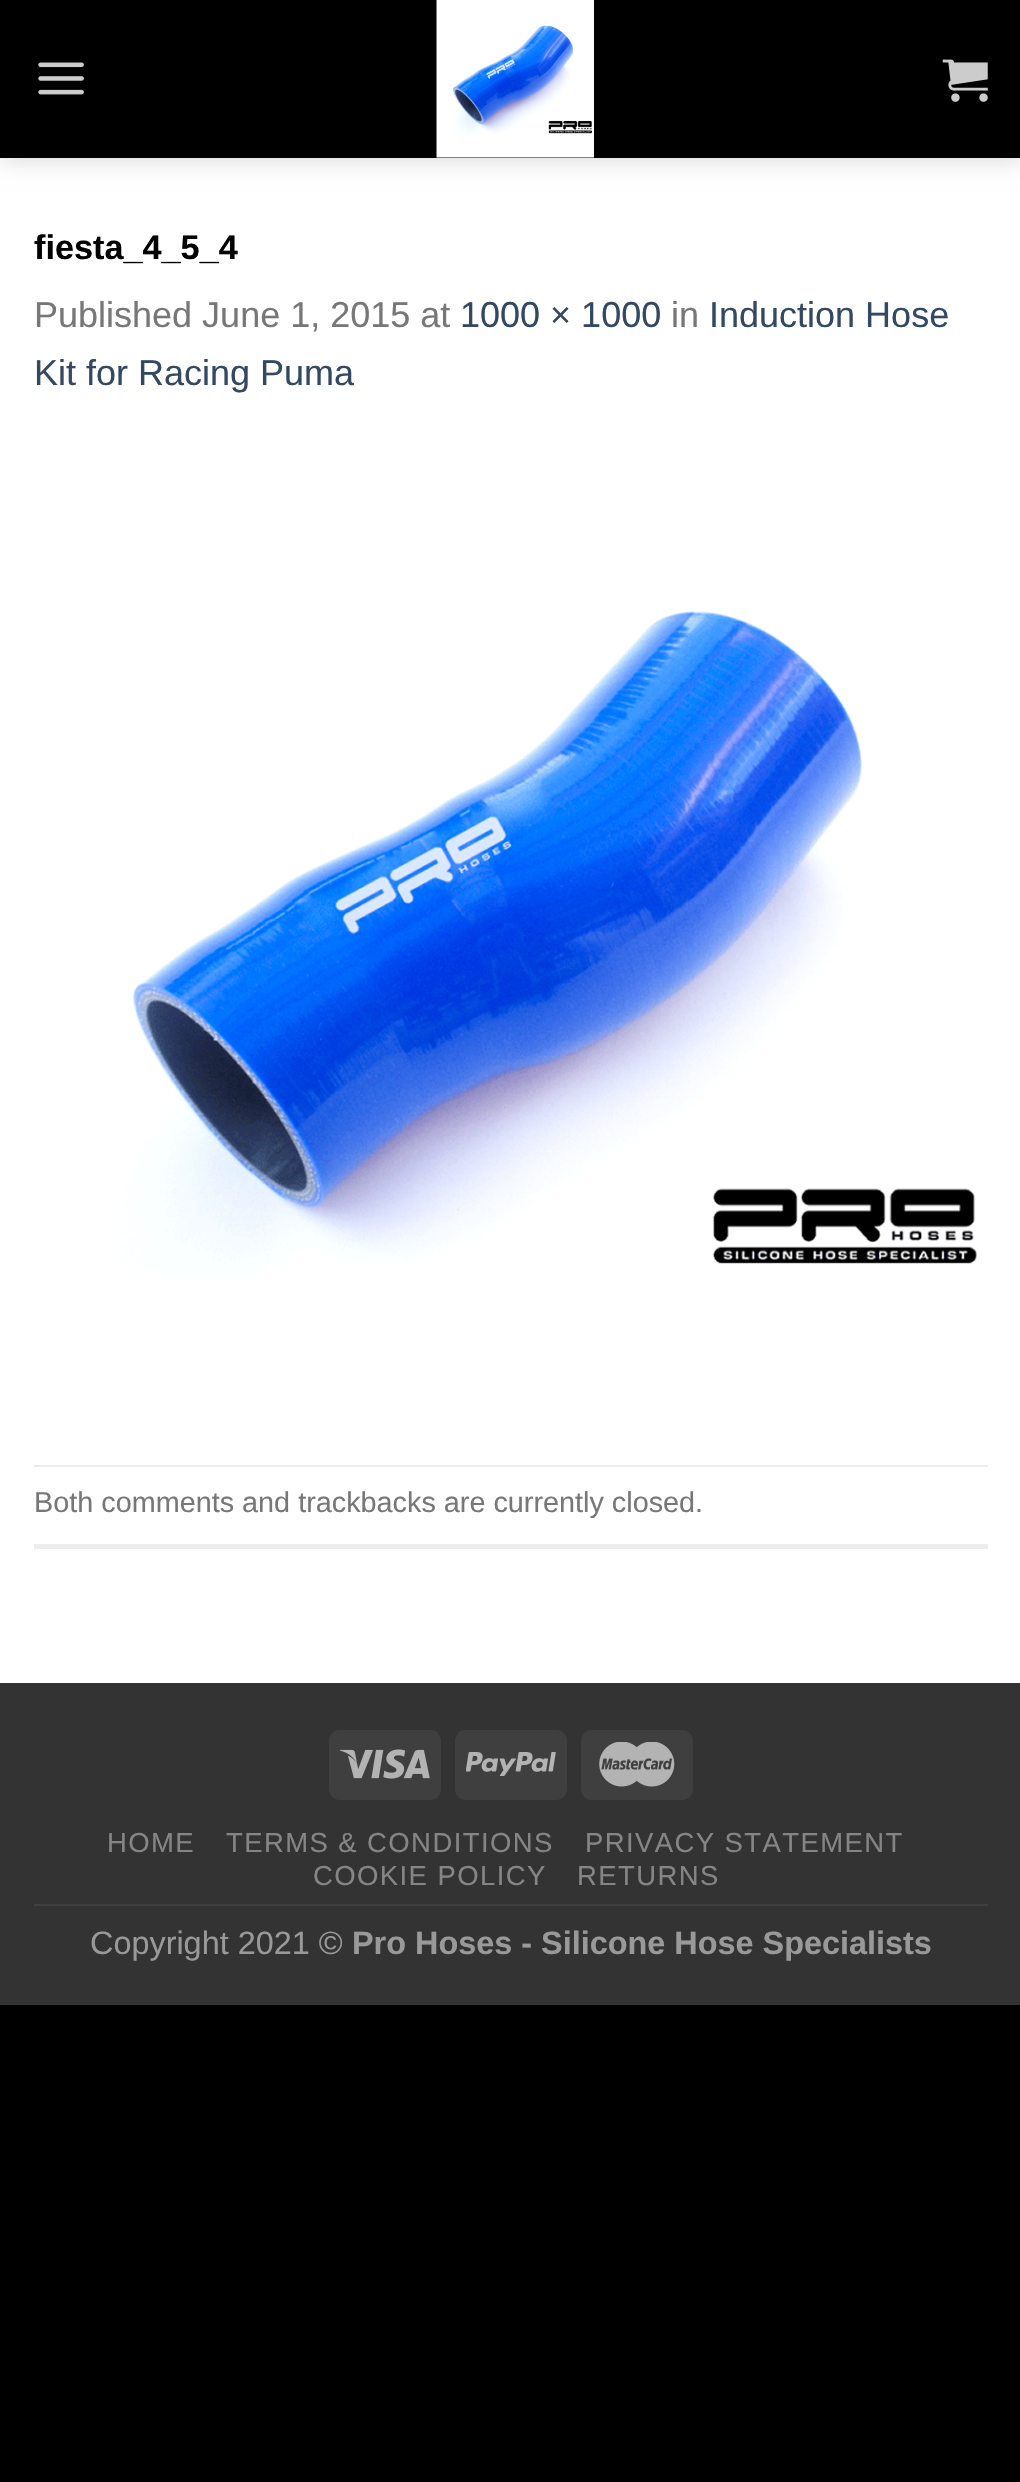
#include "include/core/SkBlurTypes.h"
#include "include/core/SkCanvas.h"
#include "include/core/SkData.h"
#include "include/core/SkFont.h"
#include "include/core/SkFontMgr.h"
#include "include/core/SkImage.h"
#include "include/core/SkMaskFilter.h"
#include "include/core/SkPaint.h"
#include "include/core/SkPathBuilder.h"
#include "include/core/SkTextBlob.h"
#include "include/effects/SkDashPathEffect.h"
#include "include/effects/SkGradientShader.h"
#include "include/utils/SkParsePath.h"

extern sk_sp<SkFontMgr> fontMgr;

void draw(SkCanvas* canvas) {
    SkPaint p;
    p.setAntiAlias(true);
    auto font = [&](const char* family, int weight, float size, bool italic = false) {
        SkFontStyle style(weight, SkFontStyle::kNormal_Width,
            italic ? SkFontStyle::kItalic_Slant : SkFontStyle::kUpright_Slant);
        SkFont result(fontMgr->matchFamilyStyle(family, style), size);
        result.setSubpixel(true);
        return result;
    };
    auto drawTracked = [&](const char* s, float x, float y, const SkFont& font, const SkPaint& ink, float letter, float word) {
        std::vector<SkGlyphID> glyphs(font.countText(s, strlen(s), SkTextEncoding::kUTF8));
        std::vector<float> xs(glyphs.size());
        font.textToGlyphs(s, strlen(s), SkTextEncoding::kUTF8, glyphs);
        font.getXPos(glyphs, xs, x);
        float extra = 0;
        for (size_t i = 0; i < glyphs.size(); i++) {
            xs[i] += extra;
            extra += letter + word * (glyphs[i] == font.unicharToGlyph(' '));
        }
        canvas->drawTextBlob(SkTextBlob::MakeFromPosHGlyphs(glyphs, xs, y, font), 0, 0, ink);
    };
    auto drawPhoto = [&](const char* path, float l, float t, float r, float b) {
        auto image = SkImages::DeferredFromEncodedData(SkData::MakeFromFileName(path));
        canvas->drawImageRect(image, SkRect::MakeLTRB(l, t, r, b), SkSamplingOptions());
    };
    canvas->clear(0xFF000000);
    p.setColor(0xFFFFFFFF);
    canvas->drawRect(SkRect::MakeLTRB(0, 158, 1020, 1683), p);
    p.setColor(0x26000000);
    p.setMaskFilter(SkMaskFilter::MakeBlur(kNormal_SkBlurStyle, 11));
    canvas->drawRect(SkRect::MakeLTRB(2, 2, 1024, 160), p);
    p.setMaskFilter(nullptr);
    drawPhoto("media/1.png", 38, 62, 84, 95);
    drawPhoto("media/2.png", 436, 0, 594, 158);
    drawPhoto("media/3.png", 942, 59, 988, 102);
    auto font1 = font("Liberation Sans", 700, 34.25f);
    p.setColor(0xFF000000);
    canvas->drawString("fiesta_4_5_4", 34, 259, font1, p);
    auto font2 = font("Liberation Sans", 400, 36);
    p.setColor(0xFF777777);
    canvas->drawString("Published June 1, 2015 at", 34, 327, font2, p);
    p.setColor(0xFF334862);
    canvas->drawString("1000 × 1000", 460, 327, font2, p);
    p.setColor(0xFF777777);
    canvas->drawString("in", 671, 327, font2, p);
    p.setColor(0xFF334862);
    canvas->drawString("Induction Hose", 709, 327, font2, p);
    canvas->drawString("Kit for Racing Puma", 34, 385, font2, p);
    drawPhoto("media/4.png", 108, 611, 978, 1277);
    p.setColor(0xFFECECEC);
    canvas->drawRect(SkRect::MakeLTRB(34, 1465, 988, 1467), p);
    canvas->drawRect(SkRect::MakeLTRB(34, 1544, 988, 1549), p);
    auto font3 = font("Liberation Sans", 400, 28.8f);
    p.setColor(0xFF777777);
    canvas->drawString("Both comments and trackbacks are currently closed.", 34, 1512, font3, p);
    p.setColor(0xFF333333);
    canvas->drawRect(SkRect::MakeLTRB(0, 1683, 1020, 2005), p);
    p.setColor(0xFF3F3F3F);
    canvas->drawRoundRect(SkRect::MakeLTRB(329, 1730, 441, 1800), 11, 11, p);
    drawPhoto("media/5.png", 340, 1749, 430, 1779);
    canvas->drawRoundRect(SkRect::MakeLTRB(455, 1730, 567, 1800), 11, 11, p);
    drawPhoto("media/6.png", 466, 1752, 556, 1776);
    canvas->drawRoundRect(SkRect::MakeLTRB(581, 1730, 693, 1800), 11, 11, p);
    drawPhoto("media/7.png", 599, 1742, 675, 1787);
    p.setColor(0xFF404040);
    canvas->drawRect(SkRect::MakeLTRB(34, 1904, 988, 1906), p);
    auto font4 = font("Liberation Sans", 400, 27.5f);
    p.setColor(0xFF858585);
    {
        const struct { const char* s; float x, y; } items[] = {
            {"HOME", 107, 1852},
            {"TERMS & CONDITIONS", 226, 1852},
            {"PRIVACY STATEMENT", 585, 1852},
            {"COOKIE POLICY", 313, 1885},
            {"RETURNS", 577, 1885},
        };
        for (auto [s, x, y] : items) {
            drawTracked(s, x, y, font4, p, 1.4f, 0);
        }
    }
    auto font5 = font("Liberation Sans", 400, 32.4f);
    p.setColor(0xFF999999);
    canvas->drawString("Copyright 2021 ©", 90, 1954, font5, p);
    auto font6 = font("Liberation Sans", 700, 32.4f);
    canvas->drawString("Pro Hoses - Silicone Hose Specialists", 352, 1954, font6, p);
}
